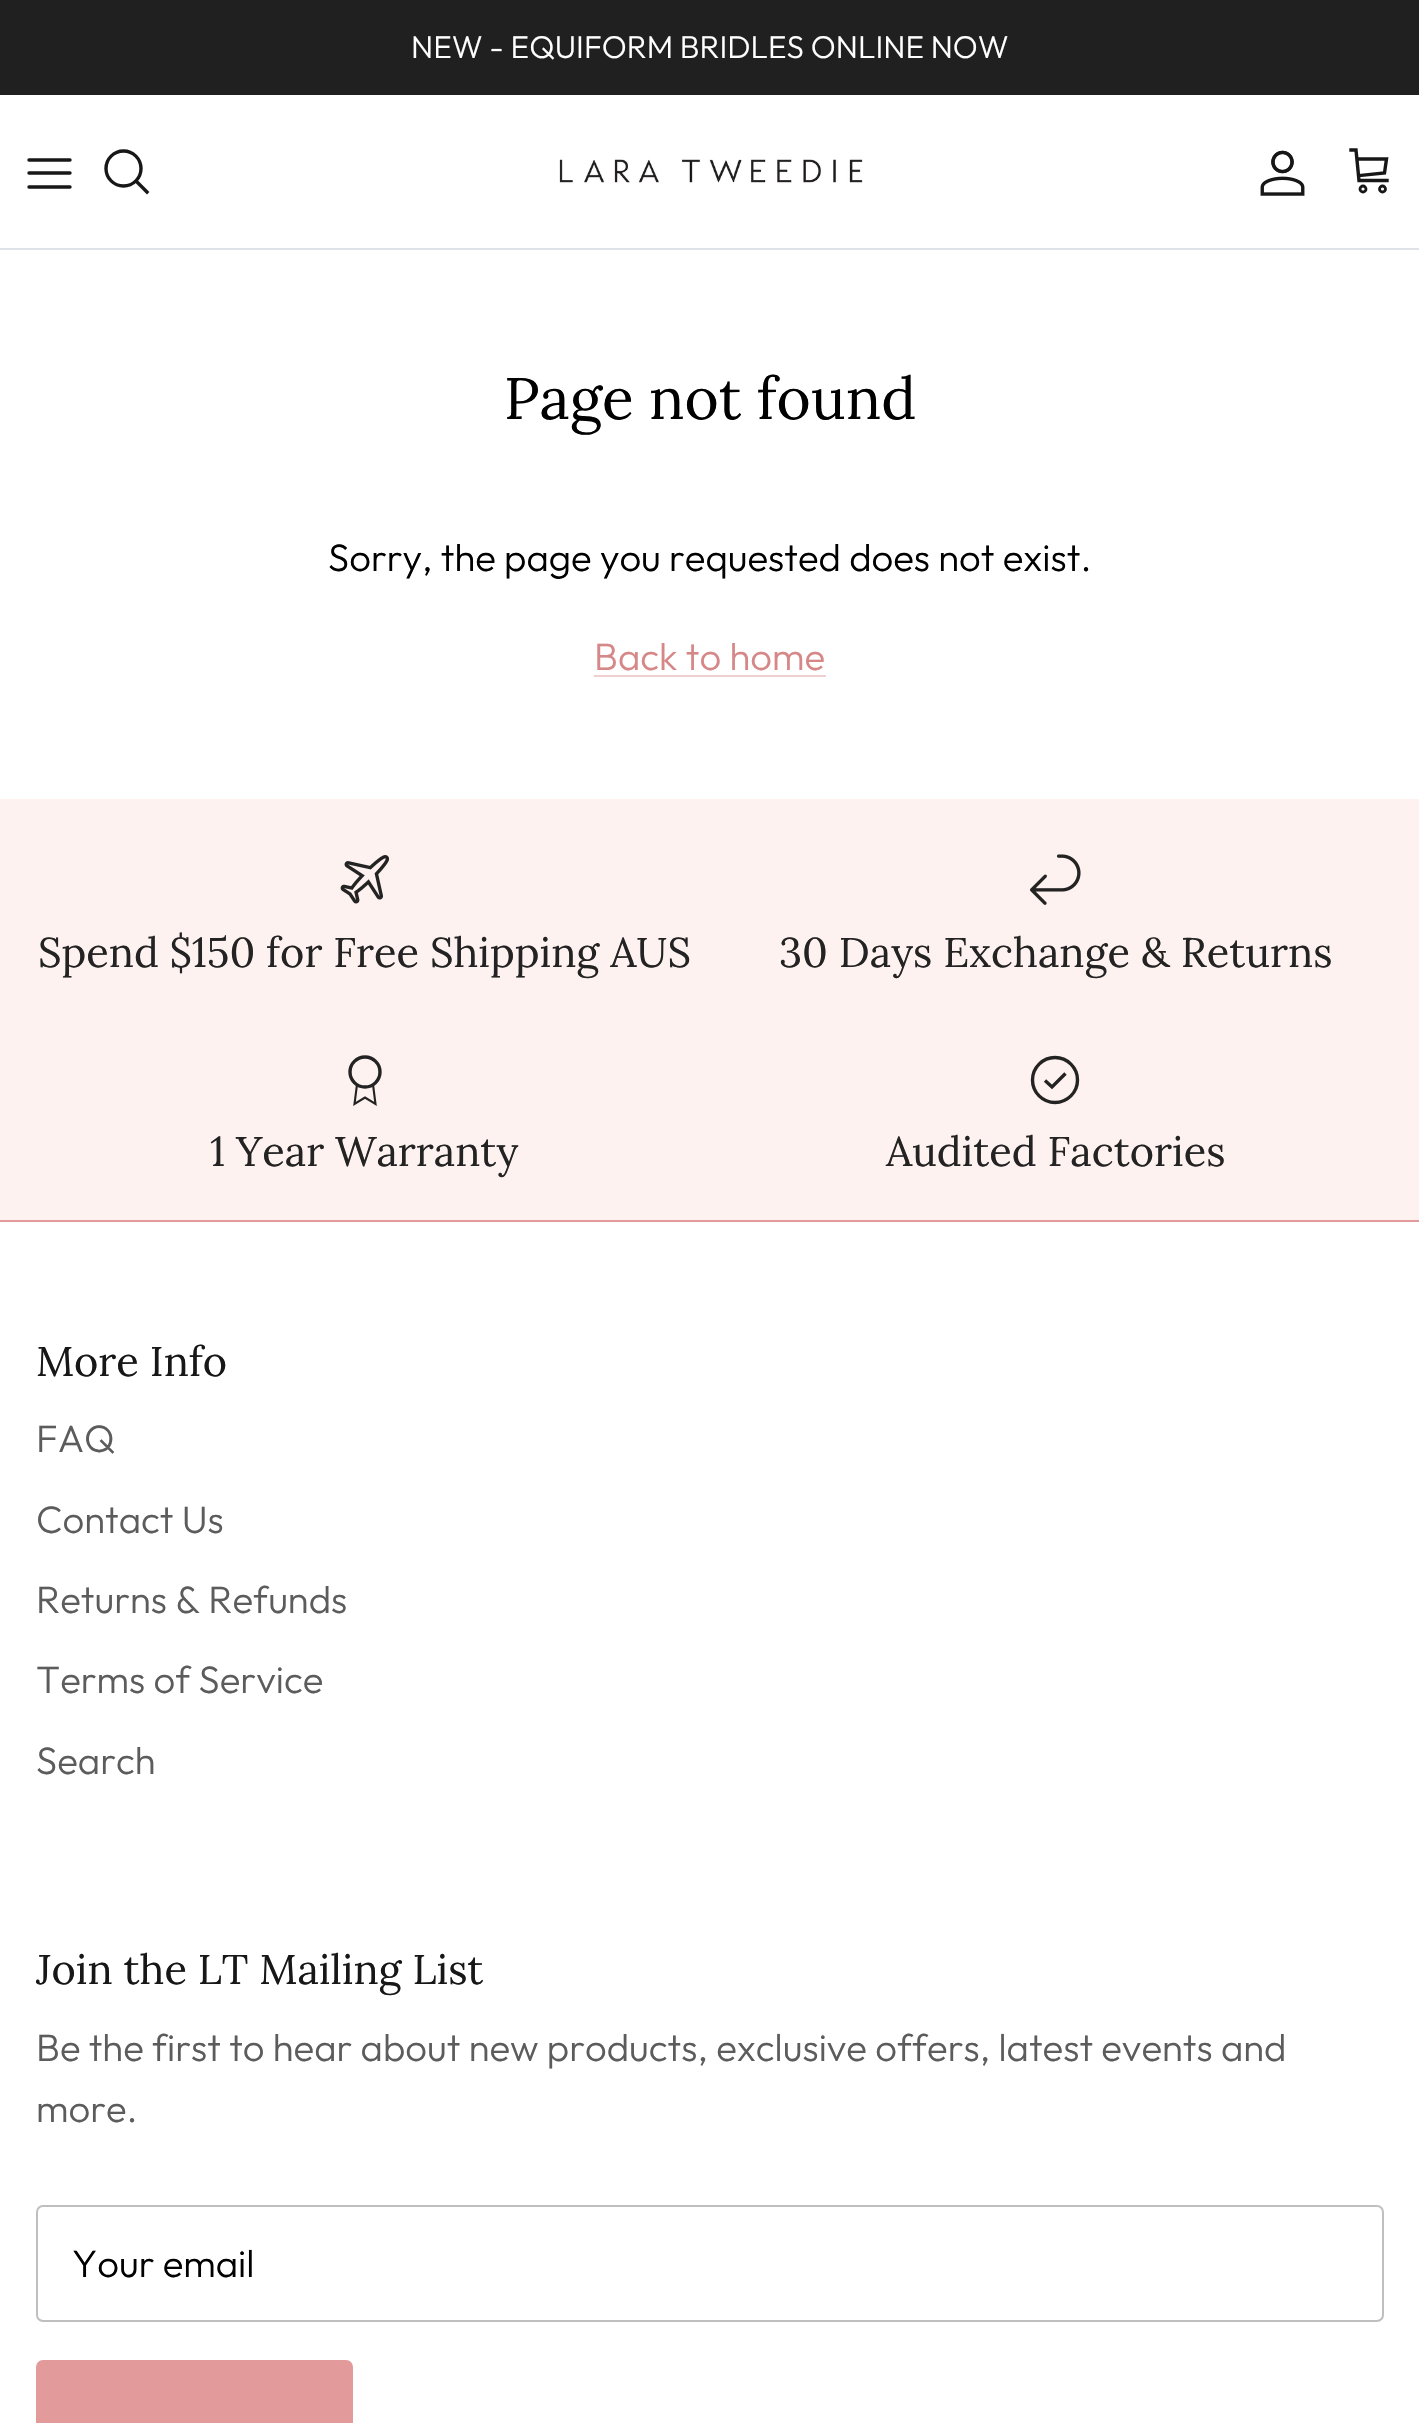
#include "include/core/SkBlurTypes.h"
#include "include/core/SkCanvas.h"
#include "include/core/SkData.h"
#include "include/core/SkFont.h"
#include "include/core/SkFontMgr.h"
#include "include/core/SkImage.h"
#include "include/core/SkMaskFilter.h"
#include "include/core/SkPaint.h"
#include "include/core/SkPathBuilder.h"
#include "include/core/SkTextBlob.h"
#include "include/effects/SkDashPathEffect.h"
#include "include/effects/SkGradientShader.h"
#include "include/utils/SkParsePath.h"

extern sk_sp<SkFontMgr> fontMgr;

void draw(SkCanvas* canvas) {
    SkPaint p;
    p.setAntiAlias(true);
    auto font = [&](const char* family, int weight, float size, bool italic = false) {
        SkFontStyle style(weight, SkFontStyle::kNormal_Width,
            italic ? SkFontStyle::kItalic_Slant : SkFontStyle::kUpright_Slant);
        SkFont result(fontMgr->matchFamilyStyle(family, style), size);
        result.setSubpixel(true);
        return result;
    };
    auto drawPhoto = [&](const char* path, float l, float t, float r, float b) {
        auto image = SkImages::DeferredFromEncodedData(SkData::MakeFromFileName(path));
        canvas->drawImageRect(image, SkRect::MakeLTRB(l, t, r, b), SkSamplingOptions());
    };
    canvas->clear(0xFFFFFFFF);
    p.setColor(0xFF202020);
    canvas->drawRect(SkRect::MakeLTRB(0, 0, 1419, 95), p);
    auto font1 = font("Outfit", 300, 31.5f);
    p.setColor(0xFFFFFFFF);
    canvas->drawString("NEW - EQUIFORM BRIDLES ONLINE NOW", 411, 58, font1, p);
    p.setColor(0xFFDFE3E8);
    canvas->drawRect(SkRect::MakeLTRB(0, 248, 1419, 250), p);
    p.setStyle(SkPaint::kStroke_Style);
    p.setStrokeWidth(3.4f);
    p.setStrokeCap(SkPaint::kRound_Cap);
    p.setStrokeJoin(SkPaint::kRound_Join);
    p.setColor(0xFF171717);
    canvas->drawPath(SkPathBuilder().moveTo(29, 173).lineTo(70, 173).moveTo(29, 160).lineTo(70, 160).moveTo(29, 187).lineTo(70, 187).detach(), p);
    p.setStrokeCap(SkPaint::kButt_Cap);
    p.setStrokeJoin(SkPaint::kMiter_Join);
    canvas->drawCircle(123.5f, 168.5f, 17.5f, p);
    p.setStrokeCap(SkPaint::kSquare_Cap);
    canvas->drawPath(SkPathBuilder().moveTo(137, 182).lineTo(147, 192).detach(), p);
    drawPhoto("media/1.png", 559, 159, 863, 184);
    drawPhoto("media/2.png", 1260, 150, 1305, 196);
    canvas->drawPath(SkPathBuilder().moveTo(1351, 150).lineTo(1356, 150).lineTo(1359, 180.5f).lineTo(1387, 180.5f).moveTo(1357.5f, 159).lineTo(1386.5f, 159).lineTo(1384.5f, 173).lineTo(1360.5f, 175.5f).detach(), p);
    p.setStrokeWidth(2.8f);
    p.setStrokeCap(SkPaint::kButt_Cap);
    canvas->drawCircle(1363, 189, 3, p);
    canvas->drawCircle(1382.5f, 189, 3, p);
    auto font2 = font("Lora", 400, 58.5f);
    p.setStyle(SkPaint::kFill_Style);
    p.setColor(0xFF000000);
    canvas->drawString("Page not found", 504, 419, font2, p);
    auto font3 = font("Outfit", 300, 38.25f);
    canvas->drawString("Sorry, the page you requested does not exist.", 328, 571, font3, p);
    p.setColor(0xFFD68787);
    canvas->drawString("Back to home", 594, 670, font3, p);
    p.setColor(0xFFEFCFCF);
    canvas->drawRect(SkRect::MakeLTRB(594, 675, 826, 677), p);
    p.setColor(0xFFFEF2F0);
    canvas->drawRect(SkRect::MakeLTRB(0, 799, 1419, 1220), p);
    drawPhoto("media/3.png", 340, 855, 390, 904);
    auto font4 = font("Lora", 400, 41.5f);
    p.setColor(0xFF232323);
    canvas->drawString("Spend $150 for Free Shipping AUS", 38, 967, font4, p);
    drawPhoto("media/4.png", 1030, 854, 1081, 905);
    canvas->drawString("30 Days Exchange & Returns", 779, 967, font4, p);
    p.setStyle(SkPaint::kStroke_Style);
    p.setStrokeWidth(3.4f);
    canvas->drawCircle(365, 1072, 15, p);
    p.setStrokeWidth(2.1f);
    canvas->drawPath(SkPathBuilder().moveTo(357, 1084.5f).lineTo(354.5f, 1104).lineTo(365, 1097.5f).lineTo(375.5f, 1104).lineTo(373, 1084.5f).detach(), p);
    p.setStyle(SkPaint::kFill_Style);
    canvas->drawString("1 Year Warranty", 210, 1166, font4, p);
    p.setStyle(SkPaint::kStroke_Style);
    p.setStrokeWidth(3.4f);
    canvas->drawCircle(1055, 1080, 22.5f, p);
    canvas->drawPath(SkPathBuilder().moveTo(1065.5f, 1073.5f).lineTo(1052, 1087).lineTo(1045, 1080.5f).detach(), p);
    p.setStyle(SkPaint::kFill_Style);
    canvas->drawString("Audited Factories", 886, 1166, font4, p);
    p.setColor(0xFFE39A9A);
    canvas->drawRect(SkRect::MakeLTRB(0, 1220, 1419, 1222), p);
    p.setColor(0xFF171717);
    canvas->drawString("More Info", 36, 1376, font4, p);
    p.setColor(0xFF5C5C5C);
    {
        const struct { const char* s; float x, y; } items[] = {
            {"FAQ", 36, 1452},
            {"Contact Us", 36, 1533},
            {"Returns & Refunds", 36, 1613},
            {"Terms of Service", 36, 1693},
            {"Search", 36, 1774},
        };
        for (auto [s, x, y] : items) {
            canvas->drawString(s, x, y, font3, p);
        }
    }
    p.setColor(0xFF171717);
    canvas->drawString("Join the LT Mailing List", 36, 1984, font4, p);
    p.setColor(0xFF5C5C5C);
    canvas->drawString("Be the first to hear about new products, exclusive offers, latest events and", 36, 2061, font3, p);
    canvas->drawString("more.", 36, 2122, font3, p);
    p.setStyle(SkPaint::kStroke_Style);
    p.setStrokeWidth(2);
    p.setColor(0xFFBFBFBF);
    canvas->drawRoundRect(SkRect::MakeLTRB(37, 2206, 1383, 2321), 6, 6, p);
    p.setStyle(SkPaint::kFill_Style);
    p.setColor(0xFF000000);
    canvas->drawString("Your email", 72, 2277, font3, p);
    p.setColor(0xFFE39A9A);
    canvas->drawRoundRect(SkRect::MakeLTRB(37, 2361, 352, 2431), 6, 6, p);
    p.setStyle(SkPaint::kStroke_Style);
    canvas->drawRoundRect(SkRect::MakeLTRB(37, 2361, 352, 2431), 6, 6, p);
}
